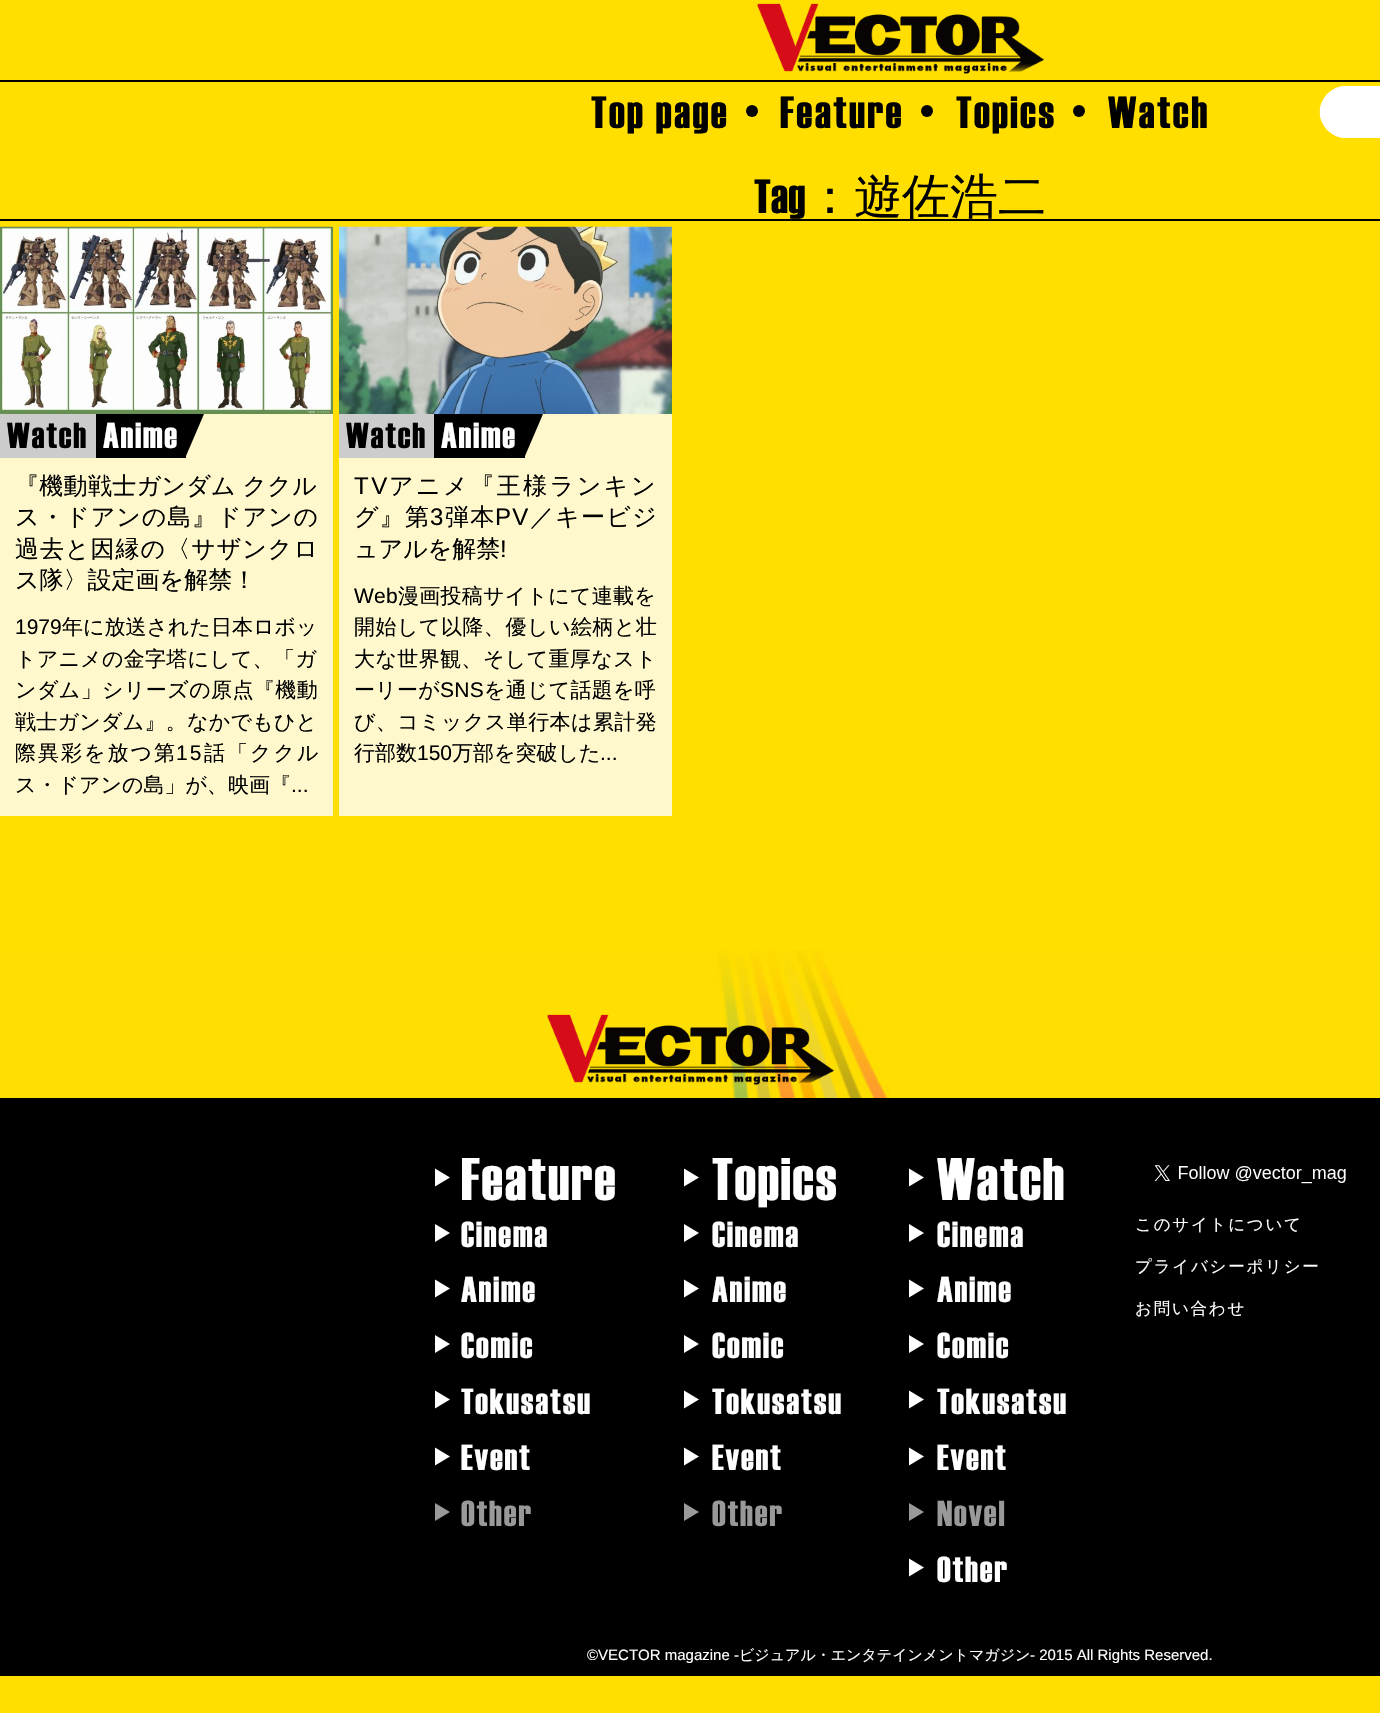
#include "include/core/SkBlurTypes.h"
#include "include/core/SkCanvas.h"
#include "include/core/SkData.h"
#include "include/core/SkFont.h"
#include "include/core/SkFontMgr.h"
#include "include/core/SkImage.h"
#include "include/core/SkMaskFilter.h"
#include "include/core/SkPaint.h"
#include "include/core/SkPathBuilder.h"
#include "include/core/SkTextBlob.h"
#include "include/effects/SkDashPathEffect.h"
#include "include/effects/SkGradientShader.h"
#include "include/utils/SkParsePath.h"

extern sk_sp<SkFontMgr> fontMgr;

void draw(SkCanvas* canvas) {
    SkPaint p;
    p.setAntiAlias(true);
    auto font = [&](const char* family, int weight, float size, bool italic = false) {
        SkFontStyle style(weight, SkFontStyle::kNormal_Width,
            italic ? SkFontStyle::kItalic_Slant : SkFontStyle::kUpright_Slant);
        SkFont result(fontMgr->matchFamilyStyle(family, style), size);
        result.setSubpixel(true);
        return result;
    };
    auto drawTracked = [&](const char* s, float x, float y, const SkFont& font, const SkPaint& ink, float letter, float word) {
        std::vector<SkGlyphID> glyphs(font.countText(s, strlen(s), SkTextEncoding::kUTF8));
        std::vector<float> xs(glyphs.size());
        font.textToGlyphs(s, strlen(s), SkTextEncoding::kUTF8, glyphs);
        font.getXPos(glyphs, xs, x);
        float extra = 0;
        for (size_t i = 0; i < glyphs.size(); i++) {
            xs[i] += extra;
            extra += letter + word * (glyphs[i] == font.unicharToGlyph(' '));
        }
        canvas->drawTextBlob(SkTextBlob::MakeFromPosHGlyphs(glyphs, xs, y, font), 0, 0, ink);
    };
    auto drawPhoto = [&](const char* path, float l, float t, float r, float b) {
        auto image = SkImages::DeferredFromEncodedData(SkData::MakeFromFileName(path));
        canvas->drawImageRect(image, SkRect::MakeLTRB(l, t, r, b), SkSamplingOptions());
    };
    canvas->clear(0xFFFFDE00);
    drawPhoto("media/1.png", 0, 950, 1380, 1098);
    p.setColor(0xFF000000);
    canvas->drawRect(SkRect::MakeLTRB(0, 80, 1380, 82), p);
    drawPhoto("media/2.png", 757, 3, 1044, 74);
    auto font1 = font("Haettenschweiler", 500, 45);
    drawTracked("Top page", 591, 128, font1, p, 2.25f, 0);
    canvas->drawCircle(752, 111, 6, p);
    drawTracked("Feature", 780, 128, font1, p, 2.25f, 0);
    canvas->drawCircle(927, 111, 6, p);
    drawTracked("Topics", 956, 128, font1, p, 2.25f, 0);
    canvas->drawCircle(1079, 111, 6, p);
    drawTracked("Watch", 1108, 128, font1, p, 2.25f, 0);
    p.setColor(0xFFFFFFFF);
    canvas->drawPath(SkPathBuilder().moveTo(1346, 86).lineTo(1380, 86).lineTo(1380, 138).lineTo(1346, 138).cubicTo(1331.5f, 138, 1320, 126.5f, 1320, 112).cubicTo(1320, 97.5f, 1331.5f, 86, 1346, 86).close().detach(), p);
    canvas->drawPath(SkPathBuilder(SkPathFillType::kEvenOdd).moveTo(1346, 138).lineTo(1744, 138).cubicTo(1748, 138, 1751, 137, 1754, 136).lineTo(1336, 136).cubicTo(1339, 137, 1342, 138, 1346, 138).close().moveTo(1322, 122).cubicTo(1319, 116, 1319, 108, 1322, 102).close().moveTo(1346, 86).cubicTo(1342, 86, 1339, 87, 1336, 88).lineTo(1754, 88).cubicTo(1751, 87, 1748, 86, 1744, 86).close().moveTo(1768, 102).lineTo(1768, 122).cubicTo(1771, 116, 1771, 108, 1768, 102).close().detach(), p);
    p.setColor(0xFF000000);
    canvas->drawRect(SkRect::MakeLTRB(0, 219, 1380, 221), p);
    auto font2 = font("Haettenschweiler", 500, 48);
    canvas->drawString("Tag", 754, 213, font2, p);
    auto font3 = font("WenQuanYi Zen Hei", 500, 48);
    canvas->drawString("：遊佐浩二", 806, 213, font3, p);
    p.setColor(0xFFFFF8CC);
    canvas->drawRect(SkRect::MakeLTRB(0, 414, 333, 816), p);
    drawPhoto("media/3.png", 0, 226, 333, 414);
    p.setColor(0xFFCCCCCC);
    canvas->drawRect(SkRect::MakeLTRB(0, 414, 96, 458), p);
    auto font4 = font("Haettenschweiler", 500, 36);
    p.setColor(0xFF000000);
    drawTracked("Watch", 7, 448, font4, p, 1.75f, 0);
    canvas->drawRect(SkRect::MakeLTRB(96, 414, 186, 458), p);
    p.setColor(0xFFFFFFFF);
    drawTracked("Anime", 103, 448, font4, p, 1.75f, 0);
    p.setColor(0xFF000000);
    canvas->drawPath(SkPathBuilder().moveTo(186, 414).lineTo(204, 414).lineTo(186, 456).close().detach(), p);
    auto font5 = font("WenQuanYi Zen Hei", 500, 24);
    drawTracked("『機動戦士ガンダム ククル", 15, 494, font5, p, 0.3f, -1);
    drawTracked("ス・ドアンの島』ドアンの", 15, 525, font5, p, 0.9f, 0);
    drawTracked("過去と因縁の〈サザンクロ", 15, 557, font5, p, 1, 0);
    canvas->drawString("ス隊〉設定画を解禁！", 15, 588, font5, p);
    auto font6 = font("Liberation Sans", 400, 21);
    canvas->drawString("1979", 15, 634, font6, p);
    auto font7 = font("WenQuanYi Zen Hei", 500, 21);
    canvas->drawString("年に放送された日本ロボッ", 62, 634, font7, p);
    drawTracked("トアニメの金字塔にして、「ガ", 15, 666, font7, p, 0.25f, 0);
    drawTracked("ンダム」シリーズの原点『機動", 15, 697, font7, p, 0.4f, 0);
    drawTracked("戦士ガンダム』。なかでもひと", 15, 729, font7, p, 0.25f, 0);
    drawTracked("際異彩を放つ第", 15, 760, font7, p, 2, 0);
    drawTracked("15", 176, 760, font6, p, 2, 0);
    drawTracked("話「ククル", 204, 760, font7, p, 2, 0);
    canvas->drawString("ス・ドアンの島」が、映画『", 15, 792, font7, p);
    canvas->drawString("...", 291, 792, font6, p);
    p.setColor(0xFFFFF8CC);
    canvas->drawRect(SkRect::MakeLTRB(339, 414, 672, 816), p);
    drawPhoto("media/4.png", 339, 226, 672, 414);
    p.setColor(0xFFCCCCCC);
    canvas->drawRect(SkRect::MakeLTRB(339, 414, 434, 458), p);
    p.setColor(0xFF000000);
    drawTracked("Watch", 346, 448, font4, p, 1.75f, 0);
    canvas->drawRect(SkRect::MakeLTRB(434, 414, 525, 458), p);
    p.setColor(0xFFFFFFFF);
    drawTracked("Anime", 441, 448, font4, p, 1.75f, 0);
    p.setColor(0xFF000000);
    canvas->drawPath(SkPathBuilder().moveTo(525, 414).lineTo(543, 414).lineTo(525, 456).close().detach(), p);
    auto font8 = font("Liberation Sans", 400, 24);
    drawTracked("TV", 354, 494, font8, p, 2.5f, 0);
    drawTracked("アニメ『王様ランキン", 389, 494, font5, p, 2.5f, 0);
    drawTracked("グ』第", 354, 525, font5, p, 1.25f, 0);
    drawTracked("3", 430, 525, font8, p, 1.25f, 0);
    drawTracked("弾本", 445, 525, font5, p, 1.25f, 0);
    drawTracked("PV", 495, 525, font8, p, 1.25f, 0);
    drawTracked("／キービジ", 530, 525, font5, p, 1.25f, 0);
    canvas->drawString("ュアルを解禁", 354, 557, font5, p);
    canvas->drawString("!", 500, 557, font8, p);
    drawTracked("Web", 354, 603, font6, p, 0.25f, 0);
    drawTracked("漫画投稿サイトにて連載を", 398, 603, font7, p, 0.25f, 0);
    drawTracked("開始して以降、優しい絵柄と壮", 354, 634, font7, p, 0.5f, 0);
    drawTracked("大な世界観、そして重厚なスト", 354, 666, font7, p, 0.4f, 0);
    drawTracked("ーリーが", 354, 697, font7, p, 0.25f, 0);
    drawTracked("SNS", 440, 697, font6, p, 0.25f, 0);
    drawTracked("を通じて話題を呼", 484, 697, font7, p, 0.25f, 0);
    drawTracked("び、コミックス単行本は累計発", 354, 729, font7, p, 0.4f, 0);
    canvas->drawString("行部数", 354, 760, font7, p);
    canvas->drawString("150", 417, 760, font6, p);
    canvas->drawString("万部を突破した", 452, 760, font7, p);
    canvas->drawString("...", 600, 760, font6, p);
    drawPhoto("media/5.png", 547, 1014, 834, 1085);
    canvas->drawRect(SkRect::MakeLTRB(0, 1098, 1380, 1676), p);
    p.setColor(0xFFFFFFFF);
    canvas->drawPath(SkPathBuilder().moveTo(435, 1186.5f).lineTo(435, 1168.5f).lineTo(450, 1177.5f).close().detach(), p);
    auto font9 = font("Haettenschweiler", 500, 60);
    drawTracked("Feature", 461, 1200, font9, p, 1.75f, 0);
    canvas->drawPath(SkPathBuilder().moveTo(435, 1242).lineTo(435, 1224).lineTo(450, 1233).close().detach(), p);
    drawTracked("Cinema", 461, 1247, font4, p, 1.75f, 0);
    canvas->drawPath(SkPathBuilder().moveTo(435, 1297.5f).lineTo(435, 1279.5f).lineTo(450, 1288.5f).close().detach(), p);
    drawTracked("Anime", 461, 1302, font4, p, 1.75f, 0);
    canvas->drawPath(SkPathBuilder().moveTo(435, 1353).lineTo(435, 1335).lineTo(450, 1344).close().detach(), p);
    drawTracked("Comic", 461, 1358, font4, p, 1.75f, 0);
    canvas->drawPath(SkPathBuilder().moveTo(435, 1408.5f).lineTo(435, 1390.5f).lineTo(450, 1399.5f).close().detach(), p);
    drawTracked("Tokusatsu", 461, 1414, font4, p, 1.75f, 0);
    canvas->drawPath(SkPathBuilder().moveTo(435, 1465.5f).lineTo(435, 1447.5f).lineTo(450, 1456.5f).close().detach(), p);
    drawTracked("Event", 461, 1470, font4, p, 1.75f, 0);
    p.setColor(0xFF999999);
    canvas->drawPath(SkPathBuilder().moveTo(435, 1521).lineTo(435, 1503).lineTo(450, 1512).close().detach(), p);
    drawTracked("Other", 461, 1526, font4, p, 1.75f, 0);
    p.setColor(0xFFFFFFFF);
    canvas->drawPath(SkPathBuilder().moveTo(684, 1186.5f).lineTo(684, 1168.5f).lineTo(699, 1177.5f).close().detach(), p);
    drawTracked("Topics", 712, 1200, font9, p, 1.75f, 0);
    canvas->drawPath(SkPathBuilder().moveTo(684, 1242).lineTo(684, 1224).lineTo(699, 1233).close().detach(), p);
    drawTracked("Cinema", 712, 1247, font4, p, 1.75f, 0);
    canvas->drawPath(SkPathBuilder().moveTo(684, 1297.5f).lineTo(684, 1279.5f).lineTo(699, 1288.5f).close().detach(), p);
    drawTracked("Anime", 712, 1302, font4, p, 1.75f, 0);
    canvas->drawPath(SkPathBuilder().moveTo(684, 1353).lineTo(684, 1335).lineTo(699, 1344).close().detach(), p);
    drawTracked("Comic", 712, 1358, font4, p, 1.75f, 0);
    canvas->drawPath(SkPathBuilder().moveTo(684, 1408.5f).lineTo(684, 1390.5f).lineTo(699, 1399.5f).close().detach(), p);
    drawTracked("Tokusatsu", 712, 1414, font4, p, 1.75f, 0);
    canvas->drawPath(SkPathBuilder().moveTo(684, 1465.5f).lineTo(684, 1447.5f).lineTo(699, 1456.5f).close().detach(), p);
    drawTracked("Event", 712, 1470, font4, p, 1.75f, 0);
    p.setColor(0xFF999999);
    canvas->drawPath(SkPathBuilder().moveTo(684, 1521).lineTo(684, 1503).lineTo(699, 1512).close().detach(), p);
    drawTracked("Other", 712, 1526, font4, p, 1.75f, 0);
    p.setColor(0xFFFFFFFF);
    canvas->drawPath(SkPathBuilder().moveTo(909, 1186.5f).lineTo(909, 1168.5f).lineTo(924, 1177.5f).close().detach(), p);
    drawTracked("Watch", 937, 1200, font9, p, 1.75f, 0);
    canvas->drawPath(SkPathBuilder().moveTo(909, 1242).lineTo(909, 1224).lineTo(924, 1233).close().detach(), p);
    drawTracked("Cinema", 937, 1247, font4, p, 1.75f, 0);
    canvas->drawPath(SkPathBuilder().moveTo(909, 1297.5f).lineTo(909, 1279.5f).lineTo(924, 1288.5f).close().detach(), p);
    drawTracked("Anime", 937, 1302, font4, p, 1.75f, 0);
    canvas->drawPath(SkPathBuilder().moveTo(909, 1353).lineTo(909, 1335).lineTo(924, 1344).close().detach(), p);
    drawTracked("Comic", 937, 1358, font4, p, 1.75f, 0);
    canvas->drawPath(SkPathBuilder().moveTo(909, 1408.5f).lineTo(909, 1390.5f).lineTo(924, 1399.5f).close().detach(), p);
    drawTracked("Tokusatsu", 937, 1414, font4, p, 1.75f, 0);
    canvas->drawPath(SkPathBuilder().moveTo(909, 1465.5f).lineTo(909, 1447.5f).lineTo(924, 1456.5f).close().detach(), p);
    drawTracked("Event", 937, 1470, font4, p, 1.75f, 0);
    p.setColor(0xFF999999);
    canvas->drawPath(SkPathBuilder().moveTo(909, 1521).lineTo(909, 1503).lineTo(924, 1512).close().detach(), p);
    drawTracked("Novel", 937, 1526, font4, p, 1.75f, 0);
    p.setColor(0xFFFFFFFF);
    canvas->drawPath(SkPathBuilder().moveTo(909, 1576.5f).lineTo(909, 1558.5f).lineTo(924, 1567.5f).close().detach(), p);
    drawTracked("Other", 937, 1582, font4, p, 1.75f, 0);
    drawPhoto("media/6.png", 1154, 1165, 1346, 1184);
    auto font10 = font("WenQuanYi Zen Hei", 500, 16.5f);
    {
        const struct { const char* s; float x, y; } items[] = {
            {"このサイトについて", 1135, 1230},
            {"プライバシーポリシー", 1135, 1272},
            {"お問い合わせ", 1135, 1314},
        };
        for (auto [s, x, y] : items) {
            drawTracked(s, x, y, font10, p, 1.75f, 0);
        }
    }
    auto font11 = font("Liberation Sans", 400, 15);
    canvas->drawString("©VECTOR magazine -", 587, 1660, font11, p);
    auto font12 = font("WenQuanYi Zen Hei", 500, 15);
    canvas->drawString("ビジュアル・エンタテインメントマガジン", 739, 1660, font12, p);
    canvas->drawString("- 2015 All Rights Reserved.", 1030, 1660, font11, p);
}
